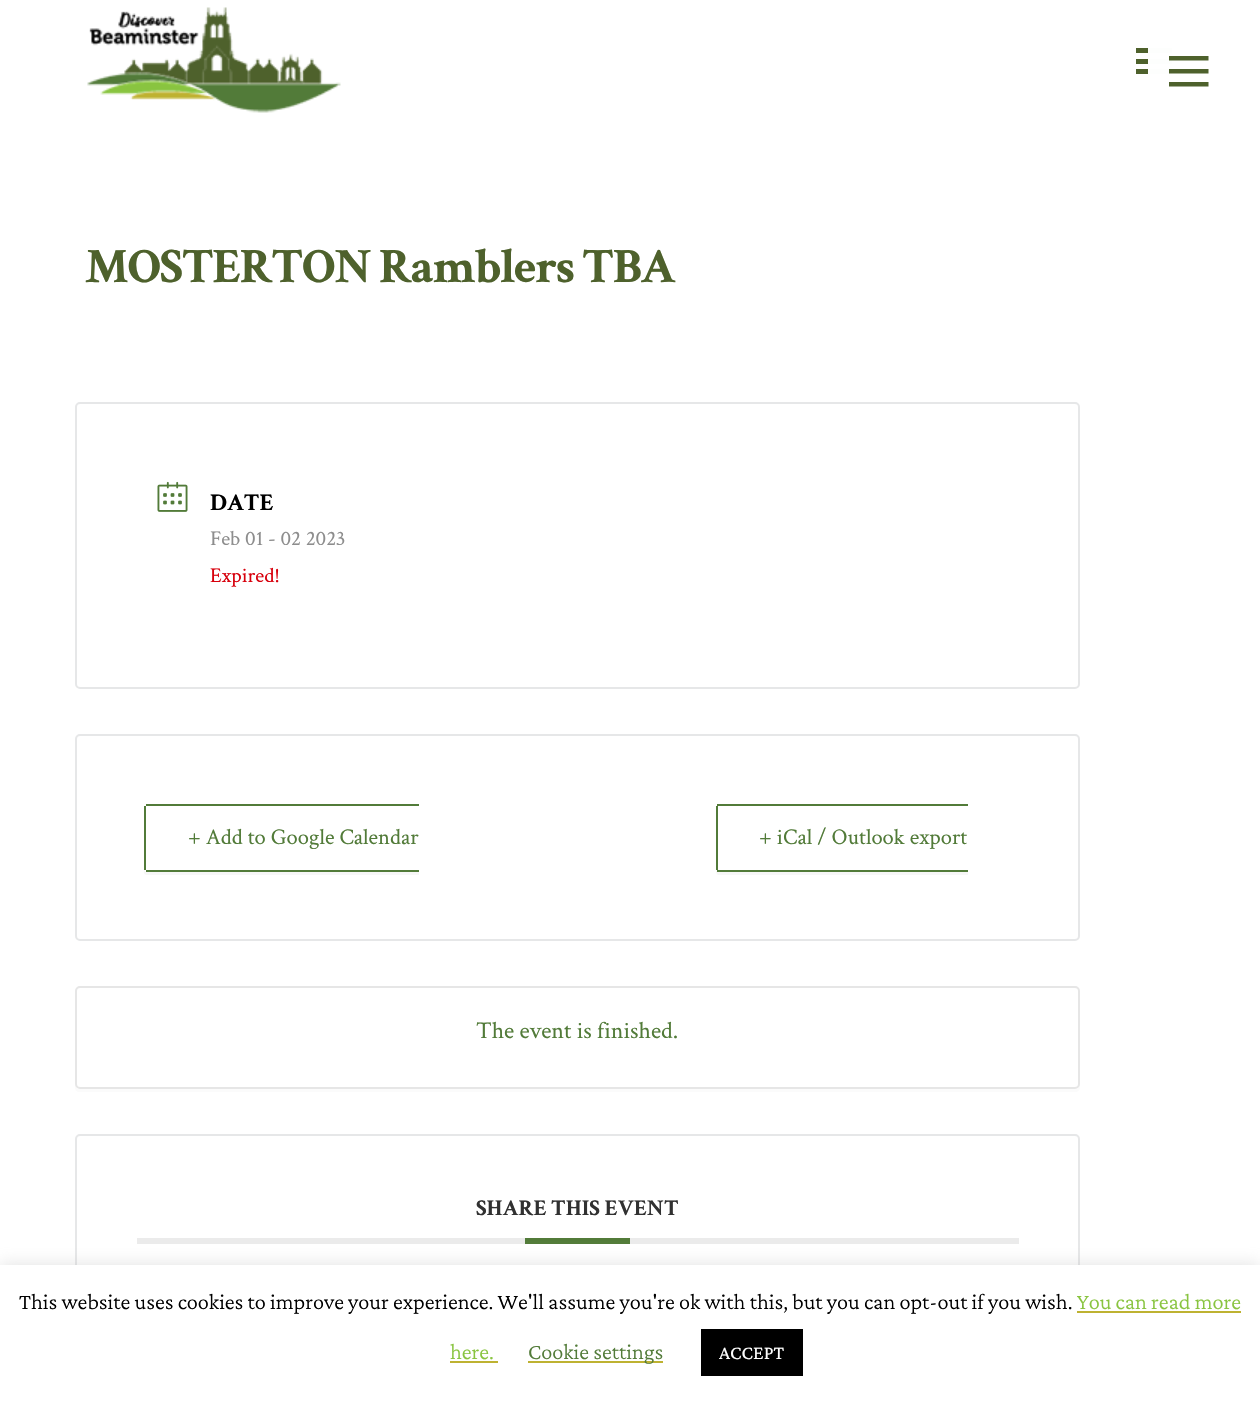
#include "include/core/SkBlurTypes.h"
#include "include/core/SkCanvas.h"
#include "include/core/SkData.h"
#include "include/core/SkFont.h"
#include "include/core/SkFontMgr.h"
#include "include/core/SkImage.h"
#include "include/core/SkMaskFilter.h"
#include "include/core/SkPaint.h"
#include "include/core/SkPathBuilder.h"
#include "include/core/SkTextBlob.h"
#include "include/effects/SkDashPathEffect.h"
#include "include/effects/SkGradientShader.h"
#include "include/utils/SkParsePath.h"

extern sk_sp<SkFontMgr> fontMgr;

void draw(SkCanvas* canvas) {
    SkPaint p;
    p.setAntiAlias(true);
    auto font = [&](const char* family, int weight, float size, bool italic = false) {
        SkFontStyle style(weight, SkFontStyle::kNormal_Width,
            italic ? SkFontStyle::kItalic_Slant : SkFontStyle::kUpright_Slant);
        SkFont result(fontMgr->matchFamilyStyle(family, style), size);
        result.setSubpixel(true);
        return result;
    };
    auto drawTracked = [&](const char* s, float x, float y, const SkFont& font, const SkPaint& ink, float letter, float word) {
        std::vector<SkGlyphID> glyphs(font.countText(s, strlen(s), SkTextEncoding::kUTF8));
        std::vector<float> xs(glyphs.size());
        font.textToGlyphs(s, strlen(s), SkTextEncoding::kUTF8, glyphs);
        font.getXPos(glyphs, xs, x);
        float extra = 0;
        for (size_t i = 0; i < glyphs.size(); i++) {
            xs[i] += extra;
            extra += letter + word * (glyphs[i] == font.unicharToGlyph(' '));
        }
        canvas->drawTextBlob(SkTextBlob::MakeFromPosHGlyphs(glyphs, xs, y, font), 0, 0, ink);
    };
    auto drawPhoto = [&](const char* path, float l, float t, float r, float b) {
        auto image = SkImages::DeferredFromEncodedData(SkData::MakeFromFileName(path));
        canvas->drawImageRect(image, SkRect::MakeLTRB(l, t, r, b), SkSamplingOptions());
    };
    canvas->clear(0xFFFFFFFF);
    drawPhoto("media/1.png", 87, 7, 341, 113);
    {
        const struct { float l, t, r, b; SkColor color; } items[] = {
            {1136, 48, 1172, 53, 0xFF4E612C},
            {1136, 59, 1172, 64, 0xFF4E612C},
            {1136, 69, 1172, 74, 0xFF4E612C},
        };
        for (auto [l, t, r, b, color] : items) {
            p.setColor(color);
            canvas->drawRect(SkRect::MakeLTRB(l, t, r, b), p);
        }
    }
    p.setColor(0xFCFFFFFF);
    canvas->drawRoundRect(SkRect::MakeLTRB(1148, 30, 1230, 113), 8, 8, p);
    p.setColor(0xFF4E612C);
    canvas->drawPath(SkPathBuilder().moveTo(1169, 69).lineTo(1208.5f, 69).lineTo(1208.5f, 73.5f).lineTo(1169, 73.5f).close().moveTo(1169, 56).lineTo(1208.5f, 56).lineTo(1208.5f, 60.5f).lineTo(1169, 60.5f).close().moveTo(1169, 82).lineTo(1208.5f, 82).lineTo(1208.5f, 86.5f).lineTo(1169, 86.5f).close().detach(), p);
    auto font1 = font("Crimson Text", 700, 49.5f);
    drawTracked("MOSTERTON Ramblers TBA", 85, 282, font1, p, -1.5f, 0);
    p.setStyle(SkPaint::kStroke_Style);
    p.setStrokeWidth(2);
    p.setColor(0xFFE6E7E8);
    canvas->drawRoundRect(SkRect::MakeLTRB(76, 403, 1079, 688), 4, 4, p);
    drawPhoto("media/2.png", 157, 481, 188, 512);
    auto font2 = font("Crimson Text", 700, 24);
    p.setStyle(SkPaint::kFill_Style);
    p.setColor(0xFF000000);
    canvas->drawString("DATE", 210, 510, font2, p);
    auto font3 = font("Crimson Text", 400, 21);
    p.setColor(0xFF8D8D8D);
    canvas->drawString("Feb 01 - 02 2023", 210, 545, font3, p);
    p.setColor(0xFFD8000C);
    canvas->drawString("Expired!", 210, 582, font3, p);
    p.setStyle(SkPaint::kStroke_Style);
    p.setColor(0xFFE6E7E8);
    canvas->drawRoundRect(SkRect::MakeLTRB(76, 735, 1079, 940), 4, 4, p);
    p.setStyle(SkPaint::kFill_Style);
    p.setColor(0xFFF7F7F7);
    canvas->drawPath(SkPathBuilder().moveTo(144, 868).cubicTo(144, 871, 143, 875, 147, 875).lineTo(419, 875).lineTo(419, 807).lineTo(418, 807).lineTo(418, 872).lineTo(147, 872).cubicTo(145, 872, 144, 870, 144, 868).close().detach(), p);
    p.setColor(0xFFFFFFFF);
    canvas->drawPath(SkPathBuilder().moveTo(147, 804).lineTo(419, 804).lineTo(419, 872).lineTo(147, 872).cubicTo(145.5f, 872, 144, 870.5f, 144, 869).lineTo(144, 807).cubicTo(144, 805.5f, 145.5f, 804, 147, 804).close().detach(), p);
    auto font4 = font("Crimson Text", 400, 22.5f);
    p.setColor(0xFF527B39);
    canvas->drawString("+ Add to Google Calendar", 188, 844, font4, p);
    {
        const struct { float l, t, r, b; SkColor color; } items[] = {
            {146, 804, 419, 806, 0xFF527B39},
            {146, 870, 419, 872, 0xFF527B39},
            {144, 806, 146, 870, 0xFF527B39},
        };
        for (auto [l, t, r, b, color] : items) {
            p.setColor(color);
            canvas->drawRect(SkRect::MakeLTRB(l, t, r, b), p);
        }
    }
    canvas->drawString("+ iCal / Outlook export", 759, 844, font4, p);
    p.setColor(0xFFF7F7F7);
    canvas->drawPath(SkPathBuilder().moveTo(716, 870).cubicTo(716, 872, 716, 874, 718, 875).lineTo(968, 875).lineTo(968, 807).lineTo(968, 872).lineTo(718, 872).cubicTo(717, 872, 717, 871, 716, 870).close().detach(), p);
    {
        const struct { float l, t, r, b; SkColor color; } items[] = {
            {717, 804, 968, 806, 0xFF527B39},
            {717, 870, 968, 872, 0xFF527B39},
            {716, 806, 718, 870, 0xFF527B39},
        };
        for (auto [l, t, r, b, color] : items) {
            p.setColor(color);
            canvas->drawRect(SkRect::MakeLTRB(l, t, r, b), p);
        }
    }
    p.setColor(0xFFFBFBFB);
    canvas->drawPath(SkPathBuilder().moveTo(75, 1084).lineTo(75, 1087).cubicTo(75, 1090, 77, 1092, 80, 1092).lineTo(1075, 1092).cubicTo(1078, 1092, 1080, 1090, 1080, 1087).lineTo(1080, 1084).cubicTo(1080, 1087, 1078, 1089, 1076, 1089).lineTo(80, 1089).cubicTo(77, 1089, 75, 1087, 75, 1084).close().detach(), p);
    p.setStyle(SkPaint::kStroke_Style);
    p.setColor(0xFFE6E6E6);
    canvas->drawRoundRect(SkRect::MakeLTRB(76, 987, 1079, 1088), 4, 4, p);
    auto font5 = font("Crimson Text", 400, 24);
    p.setStyle(SkPaint::kFill_Style);
    p.setColor(0xFF527B39);
    canvas->drawString("The event is finished.", 476, 1038, font5, p);
    p.setStyle(SkPaint::kStroke_Style);
    p.setColor(0xFFE6E7E8);
    canvas->drawRoundRect(SkRect::MakeLTRB(76, 1135, 1079, 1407), 4, 4, p);
    p.setStyle(SkPaint::kFill_Style);
    p.setColor(0xFFEBEBEB);
    canvas->drawRect(SkRect::MakeLTRB(137, 1238, 1019, 1244), p);
    auto font6 = font("Crimson Text", 700, 22.5f);
    p.setColor(0xFF313131);
    canvas->drawString("SHARE THIS EVENT", 476, 1215, font6, p);
    p.setColor(0xFF527B39);
    canvas->drawRect(SkRect::MakeLTRB(525, 1238, 630, 1244), p);
    p.setColor(0x4DACABAB);
    p.setMaskFilter(SkMaskFilter::MakeBlur(kNormal_SkBlurStyle, 7.5f));
    canvas->drawRect(SkRect::MakeLTRB(0, 1263, 1260, 1400), p);
    p.setMaskFilter(nullptr);
    p.setColor(0xFFFFFFFF);
    canvas->drawRect(SkRect::MakeLTRB(0, 1265, 1260, 1401), p);
    auto font7 = font("Crimson Pro", 300, 22.5f);
    p.setColor(0xFF000000);
    canvas->drawString("This website uses cookies to improve your experience. We'll assume you're ok with this, but you can opt-out if you wish.", 19, 1309, font7, p);
    p.setColor(0xFF89C440);
    canvas->drawString("You can read more", 1077, 1309, font7, p);
    p.setColor(0xFFBEB231);
    canvas->drawRect(SkRect::MakeLTRB(1077, 1311, 1241, 1313), p);
    p.setColor(0xFF89C440);
    canvas->drawString("here.", 450, 1359, font7, p);
    p.setColor(0xFFBEB231);
    canvas->drawRect(SkRect::MakeLTRB(450, 1361, 498, 1363), p);
    canvas->drawRect(SkRect::MakeLTRB(528, 1361, 663, 1363), p);
    p.setColor(0xFF527B39);
    canvas->drawString("Cookie settings", 528, 1359, font7, p);
    p.setColor(0xFF000000);
    canvas->drawRect(SkRect::MakeLTRB(701, 1329, 803, 1376), p);
    auto font8 = font("Crimson Pro", 400, 19.5f);
    p.setColor(0xFFFFFFFF);
    canvas->drawString("ACCEPT", 719, 1359, font8, p);
}
